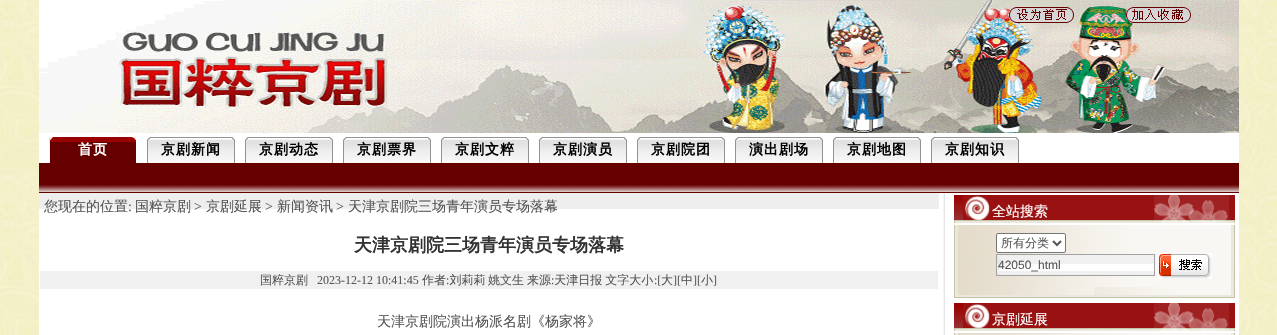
#include "include/core/SkBlurTypes.h"
#include "include/core/SkCanvas.h"
#include "include/core/SkData.h"
#include "include/core/SkFont.h"
#include "include/core/SkFontMgr.h"
#include "include/core/SkImage.h"
#include "include/core/SkMaskFilter.h"
#include "include/core/SkPaint.h"
#include "include/core/SkPathBuilder.h"
#include "include/core/SkTextBlob.h"
#include "include/effects/SkDashPathEffect.h"
#include "include/effects/SkGradientShader.h"
#include "include/utils/SkParsePath.h"

extern sk_sp<SkFontMgr> fontMgr;

void draw(SkCanvas* canvas) {
    SkPaint p;
    p.setAntiAlias(true);
    auto font = [&](const char* family, int weight, float size, bool italic = false) {
        SkFontStyle style(weight, SkFontStyle::kNormal_Width,
            italic ? SkFontStyle::kItalic_Slant : SkFontStyle::kUpright_Slant);
        SkFont result(fontMgr->matchFamilyStyle(family, style), size);
        result.setSubpixel(true);
        return result;
    };
    auto drawTracked = [&](const char* s, float x, float y, const SkFont& font, const SkPaint& ink, float letter, float word) {
        std::vector<SkGlyphID> glyphs(font.countText(s, strlen(s), SkTextEncoding::kUTF8));
        std::vector<float> xs(glyphs.size());
        font.textToGlyphs(s, strlen(s), SkTextEncoding::kUTF8, glyphs);
        font.getXPos(glyphs, xs, x);
        float extra = 0;
        for (size_t i = 0; i < glyphs.size(); i++) {
            xs[i] += extra;
            extra += letter + word * (glyphs[i] == font.unicharToGlyph(' '));
        }
        canvas->drawTextBlob(SkTextBlob::MakeFromPosHGlyphs(glyphs, xs, y, font), 0, 0, ink);
    };
    auto drawPhoto = [&](const char* path, float l, float t, float r, float b) {
        auto image = SkImages::DeferredFromEncodedData(SkData::MakeFromFileName(path));
        canvas->drawImageRect(image, SkRect::MakeLTRB(l, t, r, b), SkSamplingOptions());
    };
    canvas->clear(0xFFFFFFFF);
    drawPhoto("media/1.png", 0, 0, 1277, 335);
    drawPhoto("media/2.png", 39, 0, 1239, 133);
    drawPhoto("media/3.png", 1008, 7, 1074, 23);
    drawPhoto("media/4.png", 1126, 7, 1192, 23);
    p.setColor(0xFFFFFFFF);
    canvas->drawRect(SkRect::MakeLTRB(39, 133, 1239, 163), p);
    drawPhoto("media/5.png", 49, 137, 136, 163);
    auto font1 = font("WenQuanYi Zen Hei", 700, 14);
    drawTracked("首页", 78, 154, font1, p, 1, 0);
    drawPhoto("media/6.png", 147, 137, 235, 163);
    p.setColor(0xFF000000);
    drawTracked("京剧新闻", 161, 154, font1, p, 1, 0);
    drawPhoto("media/6.png", 245, 137, 333, 163);
    drawTracked("京剧动态", 259, 154, font1, p, 1, 0);
    drawPhoto("media/6.png", 343, 137, 431, 163);
    drawTracked("京剧票界", 357, 154, font1, p, 1, 0);
    drawPhoto("media/6.png", 441, 137, 529, 163);
    drawTracked("京剧文粹", 455, 154, font1, p, 1, 0);
    drawPhoto("media/6.png", 539, 137, 627, 163);
    drawTracked("京剧演员", 553, 154, font1, p, 1, 0);
    drawPhoto("media/6.png", 637, 137, 725, 163);
    drawTracked("京剧院团", 651, 154, font1, p, 1, 0);
    drawPhoto("media/6.png", 735, 137, 823, 163);
    drawTracked("演出剧场", 749, 154, font1, p, 1, 0);
    drawPhoto("media/6.png", 833, 137, 921, 163);
    drawTracked("京剧地图", 847, 154, font1, p, 1, 0);
    drawPhoto("media/6.png", 931, 137, 1019, 163);
    drawTracked("京剧知识", 945, 154, font1, p, 1, 0);
    drawPhoto("media/7.png", 39, 163, 1239, 193);
    p.setColor(0xFFFFFFFF);
    canvas->drawRect(SkRect::MakeLTRB(39, 193, 1239, 335), p);
    p.setColor(0xFFEEEEEE);
    canvas->drawRect(SkRect::MakeLTRB(39, 193, 939, 209), p);
    auto font2 = font("WenQuanYi Zen Hei", 500, 14);
    p.setColor(0xFF555555);
    canvas->drawString("您现在的位置", 44, 211, font2, p);
    auto font3 = font("Liberation Serif", 400, 14);
    canvas->drawString(":", 128, 211, font3, p);
    canvas->drawString("国粹京剧", 135, 211, font2, p);
    canvas->drawString(">", 194, 211, font3, p);
    canvas->drawString("京剧延展", 206, 211, font2, p);
    canvas->drawString(">", 265, 211, font3, p);
    canvas->drawString("新闻资讯", 277, 211, font2, p);
    canvas->drawString(">", 336, 211, font3, p);
    canvas->drawString("天津京剧院三场青年演员专场落幕", 348, 211, font2, p);
    auto font4 = font("WenQuanYi Zen Hei", 700, 18);
    p.setColor(0xFF333333);
    canvas->drawString("天津京剧院三场青年演员专场落幕", 354, 251, font4, p);
    p.setColor(0xFFF0F0F0);
    canvas->drawRect(SkRect::MakeLTRB(40, 271, 938, 289), p);
    auto font5 = font("WenQuanYi Zen Hei", 500, 12);
    p.setColor(0xFF555555);
    canvas->drawString("国粹京剧", 260, 284, font5, p);
    auto font6 = font("Liberation Serif", 400, 12);
    canvas->drawString("2023-12-12 10:41:45", 317, 284, font6, p);
    canvas->drawString("作者 刘莉莉", 422, 284, font5, p);
    drawTracked("姚文生 来源 天津日报 文字大小", 488, 284, font5, p, 0, -0.5f);
    canvas->drawString(":[", 654, 284, font6, p);
    canvas->drawString("大", 661, 284, font5, p);
    canvas->drawString("][", 673, 284, font6, p);
    canvas->drawString("中", 681, 284, font5, p);
    canvas->drawString("][", 693, 284, font6, p);
    canvas->drawString("小", 701, 284, font5, p);
    {
        const struct { const char* s; float x, y; } items[] = {
            {"]", 713, 284},
            {":", 446, 284},
            {":", 551, 284},
        };
        for (auto [s, x, y] : items) {
            canvas->drawString(s, x, y, font6, p);
        }
    }
    canvas->drawString("天津京剧院演出杨派名剧《杨家将》", 377, 326, font2, p);
    drawPhoto("media/8.png", 943, 193, 945, 335);
    drawPhoto("media/9.png", 954, 195, 1235, 223);
    p.setColor(0xFFFFFFFF);
    canvas->drawString("全站搜索", 992, 216, font2, p);
    drawPhoto("media/10.png", 954, 225, 1235, 287);
    canvas->drawRoundRect(SkRect::MakeLTRB(996.5f, 233.5f, 1065.5f, 252.5f), 1.5f, 1.5f, p);
    p.setStyle(SkPaint::kStroke_Style);
    p.setStrokeWidth(1);
    p.setColor(0xFF767676);
    canvas->drawRoundRect(SkRect::MakeLTRB(996.5f, 233.5f, 1065.5f, 252.5f), 1.5f, 1.5f, p);
    p.setStrokeWidth(2);
    p.setColor(0xFF555555);
    canvas->drawPath(SkPathBuilder().moveTo(1053, 241).lineTo(1057, 245).lineTo(1061, 241).detach(), p);
    p.setStyle(SkPaint::kFill_Style);
    canvas->drawString("所有分类", 1001, 247, font5, p);
    drawPhoto("media/11.png", 997, 255, 1154, 275);
    p.setStyle(SkPaint::kStroke_Style);
    p.setStrokeWidth(1);
    p.setColor(0xFFA2A2A2);
    canvas->drawRect(SkRect::MakeLTRB(996.5f, 254.5f, 1154.5f, 275.5f), p);
    auto font7 = font("Liberation Sans", 400, 12);
    p.setStyle(SkPaint::kFill_Style);
    p.setColor(0xFF555555);
    canvas->drawString("42050_html", 998, 269, font7, p);
    drawPhoto("media/12.png", 1158, 253, 1212, 279);
    drawPhoto("media/13.png", 954, 287, 1235, 298);
    drawPhoto("media/9.png", 954, 303, 1235, 331);
    p.setColor(0xFFFFFFFF);
    canvas->drawString("京剧延展", 992, 324, font2, p);
    drawPhoto("media/14.png", 954, 333, 1235, 335);
}
